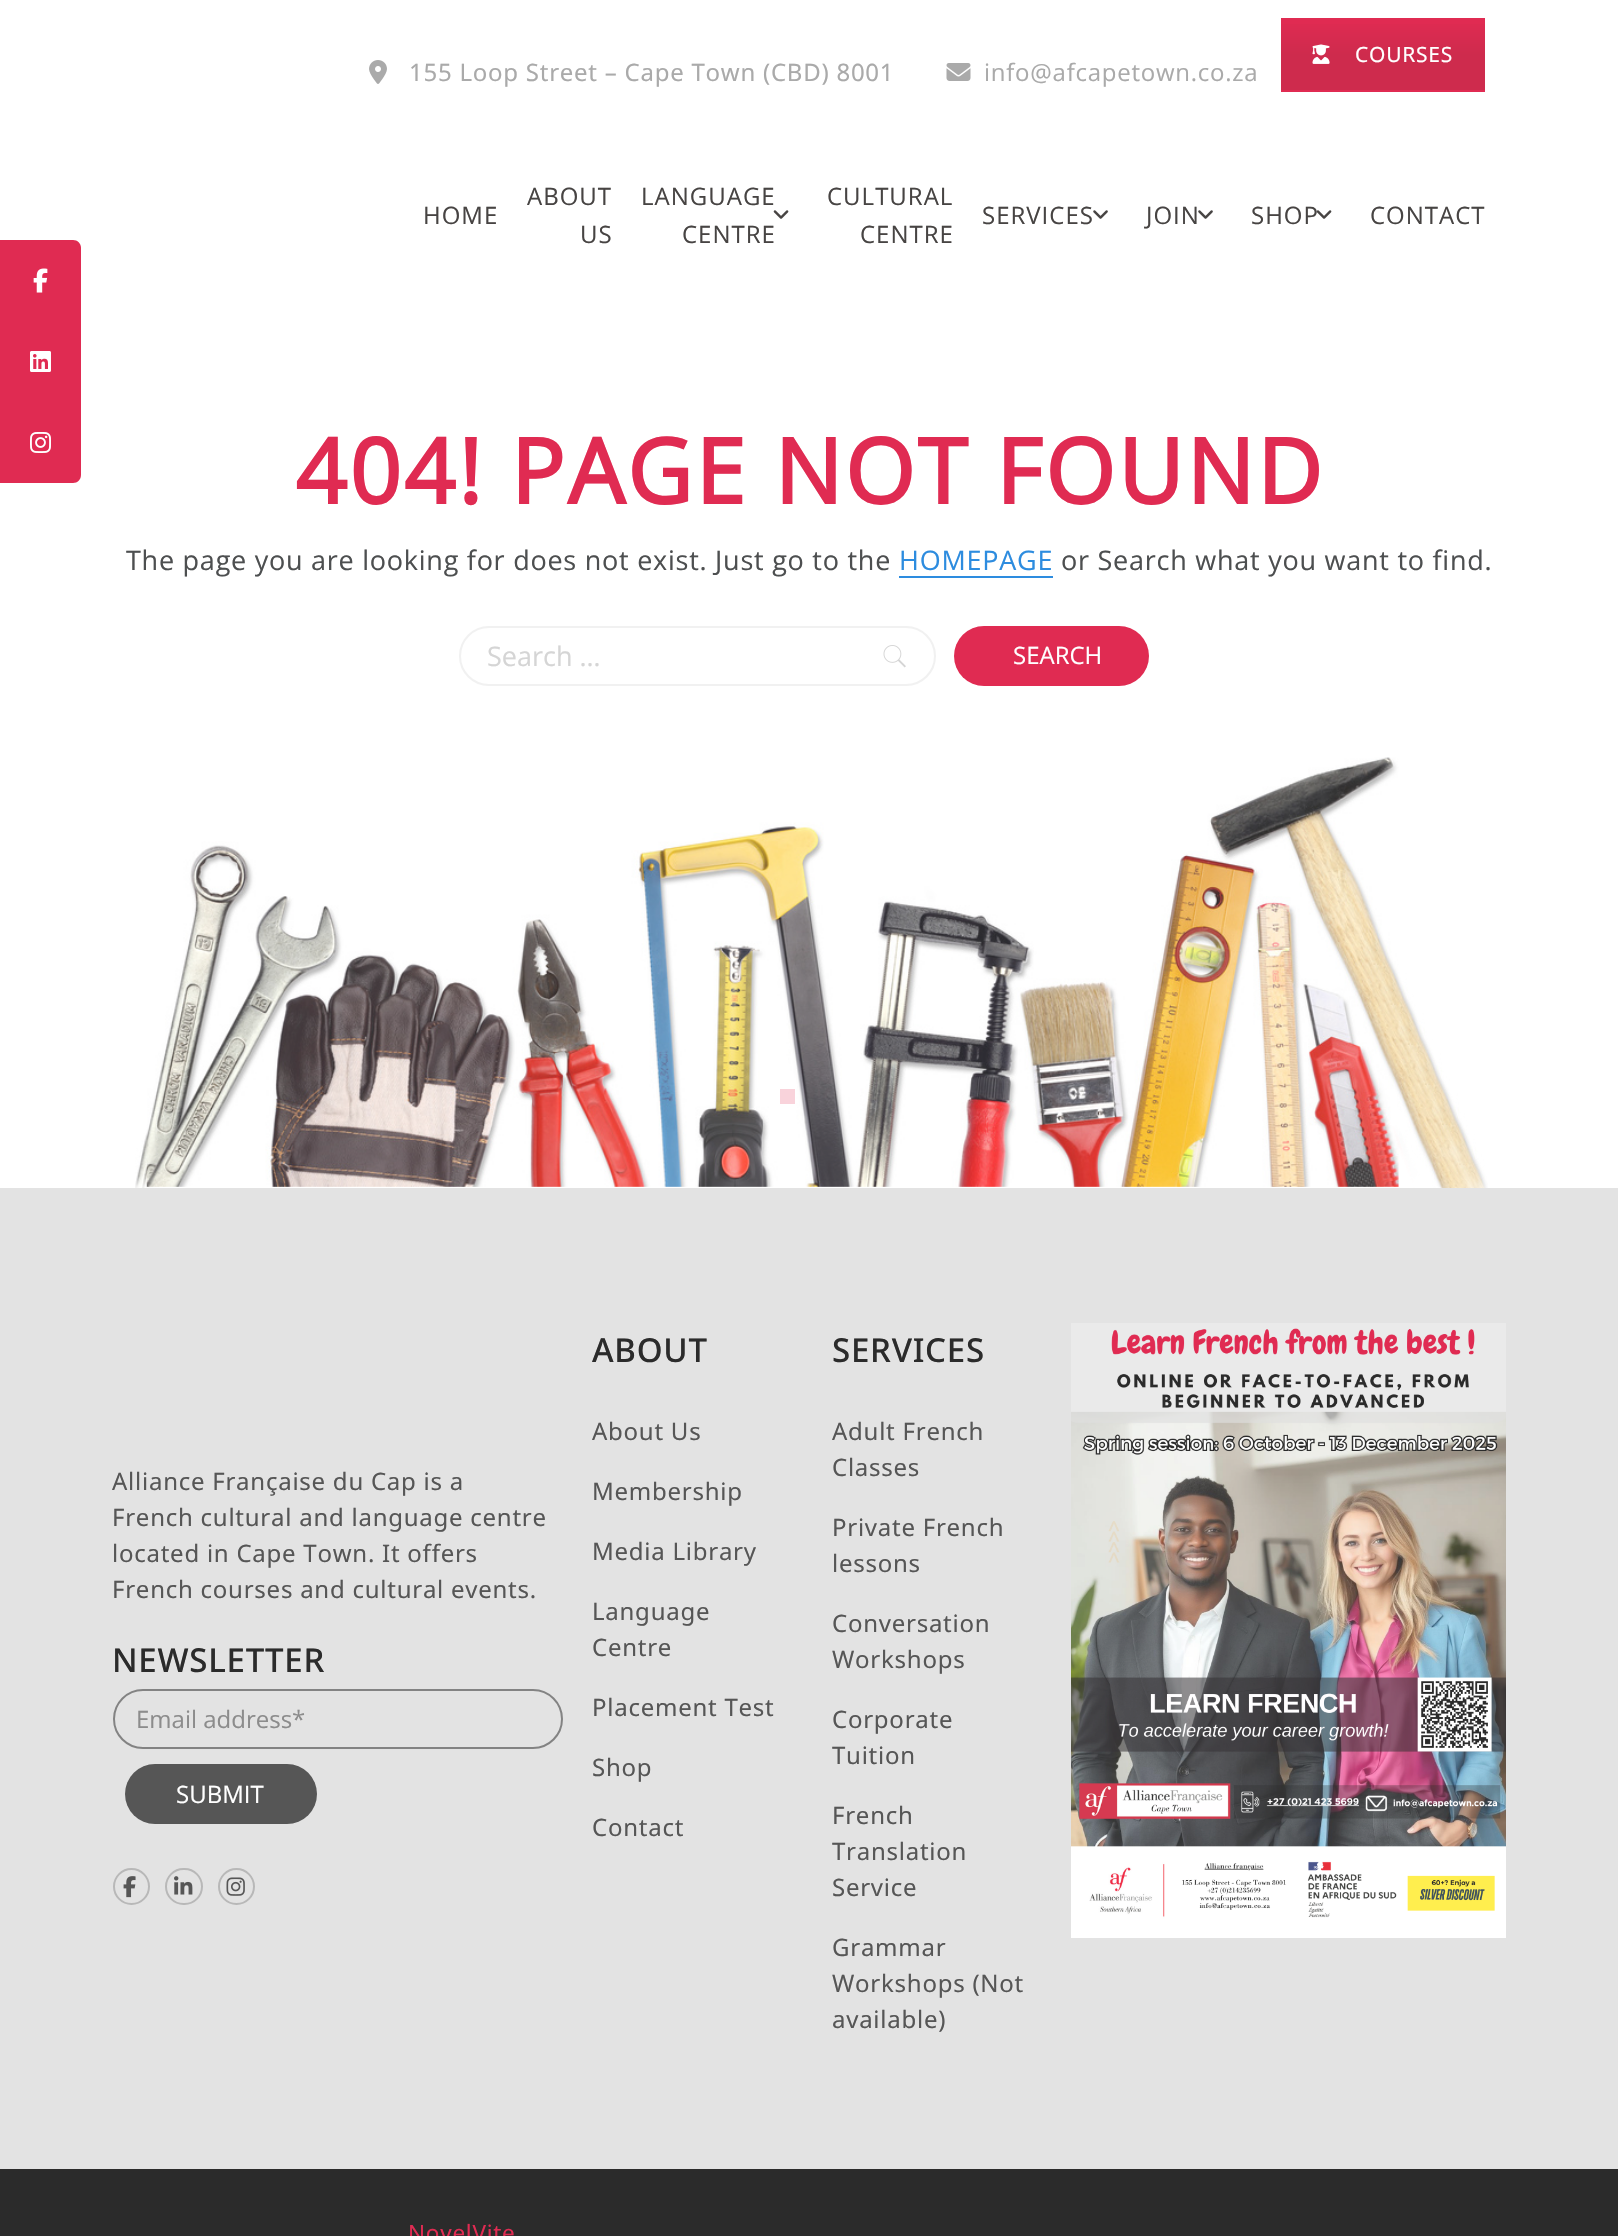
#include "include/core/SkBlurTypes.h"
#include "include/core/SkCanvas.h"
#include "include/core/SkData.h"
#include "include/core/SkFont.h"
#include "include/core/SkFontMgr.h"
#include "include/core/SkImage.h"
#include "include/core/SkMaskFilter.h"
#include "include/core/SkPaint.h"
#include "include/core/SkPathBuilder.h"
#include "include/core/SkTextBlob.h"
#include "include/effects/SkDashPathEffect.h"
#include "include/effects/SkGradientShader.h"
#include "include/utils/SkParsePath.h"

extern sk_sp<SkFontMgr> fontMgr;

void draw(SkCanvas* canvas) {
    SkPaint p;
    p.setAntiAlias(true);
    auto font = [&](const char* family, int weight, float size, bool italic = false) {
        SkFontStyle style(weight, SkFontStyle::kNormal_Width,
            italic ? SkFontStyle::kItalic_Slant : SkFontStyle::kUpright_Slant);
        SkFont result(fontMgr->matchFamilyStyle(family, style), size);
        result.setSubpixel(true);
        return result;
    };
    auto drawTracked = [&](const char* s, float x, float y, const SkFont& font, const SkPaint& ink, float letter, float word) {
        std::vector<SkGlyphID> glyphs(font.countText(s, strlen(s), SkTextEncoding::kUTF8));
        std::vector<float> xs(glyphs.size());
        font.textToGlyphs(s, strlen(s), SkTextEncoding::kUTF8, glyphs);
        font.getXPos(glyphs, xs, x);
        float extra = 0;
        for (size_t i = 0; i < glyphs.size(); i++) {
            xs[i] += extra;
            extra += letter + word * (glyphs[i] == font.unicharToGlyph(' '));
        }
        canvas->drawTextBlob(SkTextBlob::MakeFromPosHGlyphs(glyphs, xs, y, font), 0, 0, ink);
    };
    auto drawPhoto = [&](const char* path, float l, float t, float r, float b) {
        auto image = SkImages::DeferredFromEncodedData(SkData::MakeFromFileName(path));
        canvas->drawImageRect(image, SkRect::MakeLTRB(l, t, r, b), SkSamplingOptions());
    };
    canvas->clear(0xFFFFFFFF);
    p.setColor(0xFFE02B52);
    canvas->drawPath(SkPathBuilder().moveTo(0, 240).lineTo(73, 240).cubicTo(77.5f, 240, 81, 243.5f, 81, 248).lineTo(81, 321).lineTo(0, 321).close().detach(), p);
    drawPhoto("media/1.png", 33, 268, 48, 293);
    canvas->drawRect(SkRect::MakeLTRB(0, 321, 81, 402), p);
    drawPhoto("media/2.png", 30, 351, 51, 372);
    canvas->drawPath(SkPathBuilder().moveTo(0, 402).lineTo(81, 402).lineTo(81, 475).cubicTo(81, 479.5f, 77.5f, 483, 73, 483).lineTo(0, 483).close().detach(), p);
    drawPhoto("media/3.png", 30, 432, 51, 453);
    canvas->drawRect(SkRect::MakeLTRB(1281, 18, 1485, 92), p);
    {
        const SkColor colors[] = {0xFFE02B52, 0xFFCE2B4D, 0xFFCE2B4D};
        const float stops[] = {0, 0.5f, 1};
        const SkPoint ends[] = {{1484, 19}, {1484, 90}};
        p.setShader(SkGradientShader::MakeLinear(ends, colors, stops, 3, SkTileMode::kClamp));
        p.setAlpha(255);
    }
    canvas->drawRect(SkRect::MakeLTRB(1281, 24, 1485, 90), p);
    drawPhoto("media/4.png", 1312, 44, 1330, 64);
    auto font1 = font("Noto Sans", 400, 21);
    p.setShader(nullptr);
    p.setColor(0xFFFFFFFF);
    drawTracked("COURSES", 1355, 62, font1, p, 0.75f, 0);
    drawPhoto("media/5.png", 369, 60, 387, 84);
    auto font2 = font("Noto Sans", 400, 24);
    p.setColor(0xFFAAAAAA);
    drawTracked("155 Loop Street – Cape Town (CBD) 8001", 409, 81, font2, p, 0.75f, 0);
    drawPhoto("media/6.png", 946, 63, 971, 81);
    auto font3 = font("Open Sans", 400, 24);
    drawTracked("info@afcapetown.co.za", 984, 81, font3, p, 0.75f, 0);
    p.setColor(0xFF474443);
    {
        const struct { const char* s; float x, y; } items[] = {
            {"HOME", 423, 224},
            {"ABOUT", 527, 205},
            {"US", 580, 243},
            {"LANGUAGE", 641, 205},
            {"CENTRE", 682, 243},
        };
        for (auto [s, x, y] : items) {
            drawTracked(s, x, y, font3, p, 1, 0);
        }
    }
    drawPhoto("media/7.png", 773, 210, 789, 219);
    {
        const struct { const char* s; float x, y; } items[] = {
            {"CULTURAL", 827, 205},
            {"CENTRE", 860, 243},
            {"SERVICES", 982, 224},
        };
        for (auto [s, x, y] : items) {
            drawTracked(s, x, y, font3, p, 1, 0);
        }
    }
    drawPhoto("media/8.png", 1093, 210, 1108, 219);
    drawTracked("JOIN", 1146, 224, font3, p, 1, 0);
    drawPhoto("media/8.png", 1198, 210, 1213, 219);
    drawTracked("SHOP", 1251, 224, font3, p, 1, 0);
    drawPhoto("media/9.png", 1316, 210, 1332, 219);
    drawTracked("CONTACT", 1370, 224, font3, p, 1, 0);
    auto font4 = font("Open Sans", 700, 90);
    p.setColor(0xFFE02B52);
    drawTracked("404! PAGE NOT FOUND", 295, 504, font4, p, 2.75f, 0);
    auto font5 = font("Open Sans", 400, 27);
    p.setColor(0xFF4D4F50);
    drawTracked("The page you are looking for does not exist. Just go to the", 126, 570, font5, p, 0.75f, 0);
    p.setColor(0xFF2D8CDF);
    drawTracked("HOMEPAGE", 899, 570, font5, p, 0.75f, 0);
    canvas->drawRect(SkRect::MakeLTRB(899, 576, 1053, 578), p);
    p.setColor(0xFF4D4F50);
    drawTracked("or Search what you want to find.", 1061, 570, font5, p, 0.75f, 0);
    p.setStyle(SkPaint::kStroke_Style);
    p.setStrokeWidth(2);
    p.setColor(0xFFF1F1F1);
    canvas->drawRoundRect(SkRect::MakeLTRB(460, 627, 935, 685), 29, 29, p);
    p.setStyle(SkPaint::kFill_Style);
    p.setColor(0xFFD5D5D5);
    canvas->drawString("Search …", 487, 666, font5, p);
    drawPhoto("media/10.png", 883, 645, 906, 668);
    p.setColor(0xFFE02B52);
    canvas->drawRoundRect(SkRect::MakeLTRB(954, 626, 1149, 686), 30, 30, p);
    p.setColor(0xFFFFFFFF);
    canvas->drawString("SEARCH", 1013, 664, font3, p);
    drawPhoto("media/11.png", 135, 757, 1488, 1188);
    p.setColor(0xFFF9D3DB);
    canvas->drawRect(SkRect::MakeLTRB(780, 1089, 795, 1104), p);
    p.setColor(0xFFE3E3E3);
    canvas->drawRect(SkRect::MakeLTRB(0, 1188, 1618, 2169), p);
    p.setColor(0xFF565656);
    {
        const struct { const char* s; float x, y; } items[] = {
            {"Alliance Française du Cap is a", 112, 1490},
            {"French cultural and language centre", 112, 1526},
            {"located in Cape Town. It offers", 112, 1562},
            {"French courses and cultural events.", 112, 1598},
        };
        for (auto [s, x, y] : items) {
            drawTracked(s, x, y, font2, p, 0.75f, 0);
        }
    }
    auto font6 = font("Noto Sans", 500, 33);
    p.setColor(0xFF2B2B2B);
    drawTracked("NEWSLETTER", 112, 1672, font6, p, 0.75f, 0);
    p.setStyle(SkPaint::kStroke_Style);
    p.setColor(0xFF838383);
    canvas->drawRoundRect(SkRect::MakeLTRB(114, 1690, 562, 1748), 29, 29, p);
    p.setStyle(SkPaint::kFill_Style);
    p.setColor(0xFF8C8C8C);
    canvas->drawString("Email address*", 136, 1728, font3, p);
    p.setColor(0xFF565656);
    canvas->drawRoundRect(SkRect::MakeLTRB(125, 1764, 317, 1824), 30, 30, p);
    p.setColor(0xFFFFFFFF);
    canvas->drawString("SUBMIT", 176, 1803, font3, p);
    p.setStyle(SkPaint::kStroke_Style);
    p.setColor(0xFFB8B8B8);
    canvas->drawCircle(131.5f, 1886.5f, 17.5f, p);
    drawPhoto("media/12.png", 123, 1876, 136, 1898);
    canvas->drawRoundRect(SkRect::MakeLTRB(166, 1869, 202, 1904), 17.5f, 17.5f, p);
    drawPhoto("media/13.png", 174, 1876, 193, 1895);
    canvas->drawCircle(236.5f, 1886.5f, 17.5f, p);
    drawPhoto("media/14.png", 226, 1877, 245, 1896);
    p.setStyle(SkPaint::kFill_Style);
    p.setColor(0xFF2B2B2B);
    drawTracked("ABOUT", 592, 1362, font6, p, 0.75f, 0);
    p.setColor(0xFF565656);
    {
        const struct { const char* s; float x, y; } items[] = {
            {"About Us", 592, 1440},
            {"Membership", 592, 1500},
            {"Media Library", 592, 1560},
            {"Language", 592, 1620},
            {"Centre", 592, 1656},
            {"Placement Test", 592, 1716},
            {"Shop", 592, 1776},
            {"Contact", 592, 1836},
        };
        for (auto [s, x, y] : items) {
            drawTracked(s, x, y, font2, p, 0.75f, 0);
        }
    }
    p.setColor(0xFF2B2B2B);
    drawTracked("SERVICES", 832, 1362, font6, p, 0.75f, 0);
    p.setColor(0xFF565656);
    {
        const struct { const char* s; float x, y; } items[] = {
            {"Adult French", 832, 1440},
            {"Classes", 832, 1476},
            {"Private French", 832, 1536},
            {"lessons", 832, 1572},
            {"Conversation", 832, 1632},
            {"Workshops", 832, 1668},
            {"Corporate", 832, 1728},
            {"Tuition", 832, 1764},
            {"French", 832, 1824},
            {"Translation", 832, 1860},
            {"Service", 832, 1896},
            {"Grammar", 832, 1956},
            {"Workshops (Not", 832, 1992},
            {"available)", 832, 2028},
        };
        for (auto [s, x, y] : items) {
            drawTracked(s, x, y, font2, p, 0.75f, 0);
        }
    }
    drawPhoto("media/15.png", 1071, 1323, 1506, 1938);
    p.setColor(0xFF2B2B2B);
    canvas->drawRect(SkRect::MakeLTRB(0, 2169, 1618, 2236), p);
    auto font7 = font("Noto Sans", 400, 22.5f);
    p.setColor(0xFFE02B52);
    drawTracked("NovelVite", 408, 2241, font7, p, 0.75f, 0);
}
